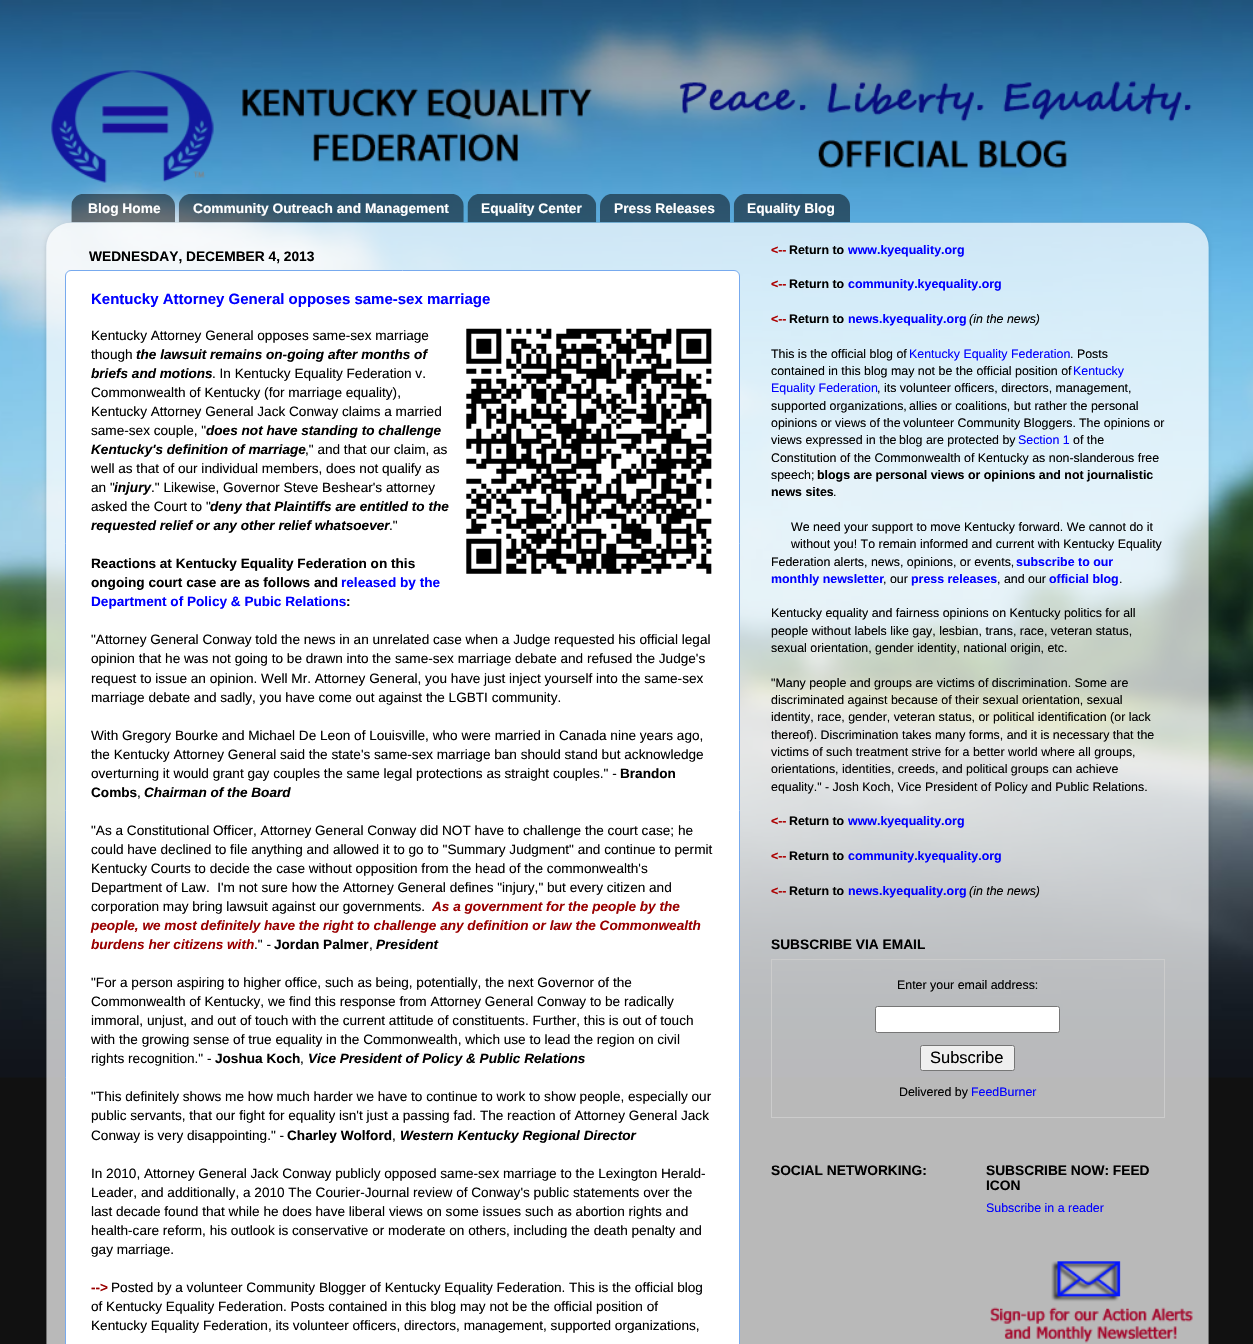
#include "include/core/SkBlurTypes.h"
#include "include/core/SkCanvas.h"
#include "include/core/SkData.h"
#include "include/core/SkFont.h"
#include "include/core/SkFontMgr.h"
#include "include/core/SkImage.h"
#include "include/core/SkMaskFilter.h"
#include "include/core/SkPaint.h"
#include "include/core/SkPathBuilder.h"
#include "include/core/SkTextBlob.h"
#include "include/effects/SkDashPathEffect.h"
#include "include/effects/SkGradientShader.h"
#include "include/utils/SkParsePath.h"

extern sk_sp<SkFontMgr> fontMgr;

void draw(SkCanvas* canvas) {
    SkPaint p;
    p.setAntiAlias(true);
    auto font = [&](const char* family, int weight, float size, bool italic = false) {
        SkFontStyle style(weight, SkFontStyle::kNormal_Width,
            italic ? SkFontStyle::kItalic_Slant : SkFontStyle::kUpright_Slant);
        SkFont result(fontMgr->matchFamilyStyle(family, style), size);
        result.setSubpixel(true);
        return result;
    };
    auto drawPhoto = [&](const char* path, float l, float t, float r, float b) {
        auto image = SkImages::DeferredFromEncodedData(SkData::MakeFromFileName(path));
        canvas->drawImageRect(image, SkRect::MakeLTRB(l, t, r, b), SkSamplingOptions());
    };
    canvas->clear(0xFF111111);
    drawPhoto("media/1.png", 0, 0, 1253, 1078);
    drawPhoto("media/2.png", 51, 70, 1192, 183);
    drawPhoto("media/3.png", 71, 194, 175, 223);
    auto font1 = font("Liberation Sans", 700, 13.75f);
    p.setColor(0xFFFFFFFF);
    canvas->drawString("Blog Home", 88, 213, font1, p);
    drawPhoto("media/4.png", 178, 194, 464, 223);
    canvas->drawString("Community Outreach and Management", 193, 213, font1, p);
    drawPhoto("media/5.png", 467, 194, 597, 223);
    canvas->drawString("Equality Center", 481, 213, font1, p);
    drawPhoto("media/6.png", 600, 194, 730, 223);
    canvas->drawString("Press Releases", 614, 213, font1, p);
    drawPhoto("media/7.png", 733, 194, 850, 223);
    canvas->drawString("Equality Blog", 747, 213, font1, p);
    canvas->save();
    canvas->clipPath(SkPathBuilder(SkPathFillType::kEvenOdd).moveTo(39, 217).lineTo(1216, 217).lineTo(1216, 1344).lineTo(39, 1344).close().moveTo(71, 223).lineTo(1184, 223).cubicTo(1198, 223, 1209, 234, 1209, 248).lineTo(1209, 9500).lineTo(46, 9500).lineTo(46, 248).cubicTo(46, 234, 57, 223, 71, 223).close().detach(), true);
    p.setColor(0x26000000);
    p.setMaskFilter(SkMaskFilter::MakeBlur(kNormal_SkBlurStyle, 2));
    canvas->drawRoundRect(SkRect::MakeLTRB(46, 224, 1209, 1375), 25, 25, p);
    p.setMaskFilter(nullptr);
    canvas->restore();
    drawPhoto("media/8.png", 46, 222, 1209, 1344);
    p.setColor(0xFF000000);
    canvas->drawString("WEDNESDAY, DECEMBER 4, 2013", 89, 261, font1, p);
    p.setColor(0xFFFFFFFF);
    canvas->drawRoundRect(SkRect::MakeLTRB(65.5f, 270.5f, 739.5f, 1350.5f), 5.5f, 5.5f, p);
    p.setStyle(SkPaint::kStroke_Style);
    p.setStrokeWidth(1);
    p.setColor(0xFF77AAEE);
    canvas->drawRoundRect(SkRect::MakeLTRB(65.5f, 270.5f, 739.5f, 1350.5f), 5.5f, 5.5f, p);
    auto font2 = font("Liberation Sans", 700, 15);
    p.setStyle(SkPaint::kFill_Style);
    p.setColor(0xFF0000FF);
    canvas->drawString("Kentucky Attorney General opposes same-sex marriage", 91, 304, font2, p);
    auto font3 = font("Liberation Sans", 400, 13.6f);
    p.setColor(0xFF000000);
    canvas->drawString("Kentucky Attorney General opposes same-sex marriage", 91, 340, font3, p);
    drawPhoto("media/9.png", 466, 328, 712, 574);
    canvas->drawString("though", 91, 359, font3, p);
    auto font4 = font("Liberation Sans", 700, 13.6f, true);
    canvas->drawString("the lawsuit remains on-going after months of", 136, 359, font4, p);
    canvas->drawString("briefs and motions", 91, 378, font4, p);
    {
        const struct { const char* s; float x, y; } items[] = {
            {". In Kentucky Equality Federation v.", 212, 378},
            {"Commonwealth of Kentucky (for marriage equality),", 91, 397},
            {"Kentucky Attorney General Jack Conway claims a married", 91, 416},
            {"same-sex couple, \"", 91, 435},
        };
        for (auto [s, x, y] : items) {
            canvas->drawString(s, x, y, font3, p);
        }
    }
    canvas->drawString("does not have standing to challenge", 206, 435, font4, p);
    canvas->drawString("Kentucky's definition of marriage", 91, 454, font4, p);
    {
        const struct { const char* s; float x, y; } items[] = {
            {",\" and that our claim, as", 305, 454},
            {"well as that of our individual members, does not qualify as", 91, 473},
            {"an \"", 91, 492},
        };
        for (auto [s, x, y] : items) {
            canvas->drawString(s, x, y, font3, p);
        }
    }
    canvas->drawString("injury", 114, 492, font4, p);
    canvas->drawString(".\" Likewise, Governor Steve Beshear's attorney", 151, 492, font3, p);
    canvas->drawString("asked the Court to \"", 91, 511, font3, p);
    canvas->drawString("deny that Plaintiffs are entitled to the", 210, 511, font4, p);
    canvas->drawString("requested relief or any other relief whatsoever", 91, 530, font4, p);
    canvas->drawString(".\"", 389, 530, font3, p);
    auto font5 = font("Liberation Sans", 700, 13.6f);
    canvas->drawString("Reactions at Kentucky Equality Federation on this", 91, 568, font5, p);
    canvas->drawString("ongoing court case are as follows and", 91, 587, font5, p);
    p.setColor(0xFF0000FF);
    canvas->drawString("released by the", 341, 587, font5, p);
    canvas->drawString("Department of Policy & Pubic Relations", 91, 606, font5, p);
    p.setColor(0xFF000000);
    canvas->drawString(":", 346, 606, font5, p);
    {
        const struct { const char* s; float x, y; } items[] = {
            {"\"Attorney General Conway told the news in an unrelated case when a Judge requested his official legal", 91, 644},
            {"opinion that he was not going to be drawn into the same-sex marriage debate and refused the Judge's", 91, 663},
            {"request to issue an opinion. Well Mr. Attorney General, you have just inject yourself into the same-sex", 91, 683},
            {"marriage debate and sadly, you have come out against the LGBTI community.", 91, 702},
            {"With Gregory Bourke and Michael De Leon of Louisville, who were married in Canada nine years ago,", 91, 740},
            {"the Kentucky Attorney General said the state's same-sex marriage ban should stand but acknowledge", 91, 759},
            {"overturning it would grant gay couples the same legal protections as straight couples.\" -", 91, 778},
        };
        for (auto [s, x, y] : items) {
            canvas->drawString(s, x, y, font3, p);
        }
    }
    canvas->drawString("Brandon", 620, 778, font5, p);
    canvas->drawString("Combs", 91, 797, font5, p);
    canvas->drawString(",", 137, 797, font3, p);
    canvas->drawString("Chairman of the Board", 144, 797, font4, p);
    {
        const struct { const char* s; float x, y; } items[] = {
            {"\"As a Constitutional Officer, Attorney General Conway did NOT have to challenge the court case; he", 91, 835},
            {"could have declined to file anything and allowed it to go to \"Summary Judgment\" and continue to permit", 91, 854},
            {"Kentucky Courts to decide the case without opposition from the head of the commonwealth's", 91, 873},
            {"Department of Law.  I'm not sure how the Attorney General defines \"injury,\" but every citizen and", 91, 892},
            {"corporation may bring lawsuit against our governments.", 91, 911},
        };
        for (auto [s, x, y] : items) {
            canvas->drawString(s, x, y, font3, p);
        }
    }
    p.setColor(0xFF990000);
    {
        const struct { const char* s; float x, y; } items[] = {
            {"As a government for the people by the", 432, 911},
            {"people, we most definitely have the right to challenge any definition or law the Commonwealth", 91, 930},
            {"burdens her citizens with", 91, 949},
        };
        for (auto [s, x, y] : items) {
            canvas->drawString(s, x, y, font4, p);
        }
    }
    p.setColor(0xFF000000);
    canvas->drawString(".\" -", 254, 949, font3, p);
    canvas->drawString("Jordan Palmer", 274, 949, font5, p);
    canvas->drawString(",", 369, 949, font3, p);
    canvas->drawString("President", 376, 949, font4, p);
    {
        const struct { const char* s; float x, y; } items[] = {
            {"\"For a person aspiring to higher office, such as being, potentially, the next Governor of the", 91, 987},
            {"Commonwealth of Kentucky, we find this response from Attorney General Conway to be radically", 91, 1006},
            {"immoral, unjust, and out of touch with the current attitude of constituents. Further, this is out of touch", 91, 1025},
            {"with the growing sense of true equality in the Commonwealth, which use to lead the region on civil", 91, 1044},
            {"rights recognition.\" -", 91, 1063},
        };
        for (auto [s, x, y] : items) {
            canvas->drawString(s, x, y, font3, p);
        }
    }
    canvas->drawString("Joshua Koch", 215, 1063, font5, p);
    canvas->drawString(",", 300, 1063, font3, p);
    canvas->drawString("Vice President of Policy & Public Relations", 308, 1063, font4, p);
    {
        const struct { const char* s; float x, y; } items[] = {
            {"\"This definitely shows me how much harder we have to continue to work to show people, especially our", 91, 1101},
            {"public servants, that our fight for equality isn't just a passing fad. The reaction of Attorney General Jack", 91, 1120},
            {"Conway is very disappointing.\" -", 91, 1140},
        };
        for (auto [s, x, y] : items) {
            canvas->drawString(s, x, y, font3, p);
        }
    }
    canvas->drawString("Charley Wolford", 287, 1140, font5, p);
    canvas->drawString(",", 392, 1140, font3, p);
    canvas->drawString("Western Kentucky Regional Director", 400, 1140, font4, p);
    {
        const struct { const char* s; float x, y; } items[] = {
            {"In 2010, Attorney General Jack Conway publicly opposed same-sex marriage to the Lexington Herald-", 91, 1178},
            {"Leader, and additionally, a 2010 The Courier-Journal review of Conway's public statements over the", 91, 1197},
            {"last decade found that while he does have liberal views on some issues such as abortion rights and", 91, 1216},
            {"health-care reform, his outlook is conservative or moderate on others, including the death penalty and", 91, 1235},
            {"gay marriage.", 91, 1254},
        };
        for (auto [s, x, y] : items) {
            canvas->drawString(s, x, y, font3, p);
        }
    }
    p.setColor(0xFF990000);
    canvas->drawString("-->", 91, 1292, font5, p);
    p.setColor(0xFF000000);
    {
        const struct { const char* s; float x, y; } items[] = {
            {"Posted by a volunteer Community Blogger of Kentucky Equality Federation. This is the official blog", 111, 1292},
            {"of Kentucky Equality Federation. Posts contained in this blog may not be the official position of", 91, 1311},
            {"Kentucky Equality Federation, its volunteer officers, directors, management, supported organizations,", 91, 1330},
        };
        for (auto [s, x, y] : items) {
            canvas->drawString(s, x, y, font3, p);
        }
    }
    auto font6 = font("Liberation Sans", 700, 12.4f);
    p.setColor(0xFFAC0000);
    canvas->drawString("<--", 771, 254, font6, p);
    p.setColor(0xFF000000);
    canvas->drawString("Return to", 789, 254, font6, p);
    p.setColor(0xFF0000FF);
    canvas->drawString("www.kyequality.org", 848, 254, font6, p);
    p.setColor(0xFFAC0000);
    canvas->drawString("<--", 771, 288, font6, p);
    p.setColor(0xFF000000);
    canvas->drawString("Return to", 789, 288, font6, p);
    p.setColor(0xFF0000FF);
    canvas->drawString("community.kyequality.org", 848, 288, font6, p);
    p.setColor(0xFFAC0000);
    canvas->drawString("<--", 771, 323, font6, p);
    p.setColor(0xFF000000);
    canvas->drawString("Return to", 789, 323, font6, p);
    p.setColor(0xFF0000FF);
    canvas->drawString("news.kyequality.org", 848, 323, font6, p);
    auto font7 = font("Liberation Sans", 400, 12.4f, true);
    p.setColor(0xFF000000);
    canvas->drawString("(in the news)", 969, 323, font7, p);
    auto font8 = font("Liberation Sans", 400, 12.4f);
    canvas->drawString("This is the official blog of", 771, 358, font8, p);
    p.setColor(0xFF0000FF);
    canvas->drawString("Kentucky Equality Federation", 909, 358, font8, p);
    p.setColor(0xFF000000);
    canvas->drawString(". Posts", 1070, 358, font8, p);
    canvas->drawString("contained in this blog may not be the official position of", 771, 375, font8, p);
    p.setColor(0xFF0000FF);
    canvas->drawString("Kentucky", 1073, 375, font8, p);
    canvas->drawString("Equality Federation", 771, 392, font8, p);
    p.setColor(0xFF000000);
    {
        const struct { const char* s; float x, y; } items[] = {
            {",", 877, 392},
            {"its volunteer officers, directors, management,", 884, 392},
            {"supported organizations,", 771, 410},
            {"allies or coalitions, but rather the personal", 909, 410},
            {"opinions or views of the", 771, 427},
            {"volunteer Community Bloggers.", 903, 427},
            {"The opinions or", 1079, 427},
            {"views expressed in the", 771, 444},
            {"blog are protected by", 899, 444},
        };
        for (auto [s, x, y] : items) {
            canvas->drawString(s, x, y, font8, p);
        }
    }
    p.setColor(0xFF0000FF);
    canvas->drawString("Section 1", 1018, 444, font8, p);
    p.setColor(0xFF000000);
    {
        const struct { const char* s; float x, y; } items[] = {
            {"of the", 1073, 444},
            {"Constitution of the Commonwealth of Kentucky as non-slanderous free", 771, 462},
            {"speech;", 771, 479},
        };
        for (auto [s, x, y] : items) {
            canvas->drawString(s, x, y, font8, p);
        }
    }
    canvas->drawString("blogs are personal views or opinions and not journalistic", 817, 479, font6, p);
    canvas->drawString("news sites", 771, 496, font6, p);
    {
        const struct { const char* s; float x, y; } items[] = {
            {".", 833, 496},
            {"We need your support to move Kentucky forward. We cannot do it", 791, 531},
            {"without you! To remain informed and current with Kentucky Equality", 791, 548},
            {"Federation alerts, news, opinions, or events,", 771, 566},
        };
        for (auto [s, x, y] : items) {
            canvas->drawString(s, x, y, font8, p);
        }
    }
    p.setColor(0xFF0000FF);
    canvas->drawString("subscribe to our", 1016, 566, font6, p);
    canvas->drawString("monthly newsletter", 771, 583, font6, p);
    p.setColor(0xFF000000);
    canvas->drawString(", our", 883, 583, font8, p);
    p.setColor(0xFF0000FF);
    canvas->drawString("press releases", 911, 583, font6, p);
    p.setColor(0xFF000000);
    canvas->drawString(", and our", 997, 583, font8, p);
    p.setColor(0xFF0000FF);
    canvas->drawString("official blog", 1049, 583, font6, p);
    p.setColor(0xFF000000);
    {
        const struct { const char* s; float x, y; } items[] = {
            {".", 1119, 583},
            {"Kentucky equality and fairness opinions on Kentucky politics for all", 771, 617},
            {"people without labels like gay, lesbian, trans, race, veteran status,", 771, 635},
            {"sexual orientation, gender identity, national origin, etc.", 771, 652},
            {"\"Many people and groups are victims of discrimination. Some are", 771, 687},
            {"discriminated against because of their sexual orientation, sexual", 771, 704},
            {"identity, race, gender, veteran status, or political identification (or lack", 771, 721},
            {"thereof). Discrimination takes many forms, and it is necessary that the", 771, 739},
            {"victims of such treatment strive for a better world where all groups,", 771, 756},
            {"orientations, identities, creeds, and political groups can achieve", 771, 773},
            {"equality.\" - Josh Koch, Vice President of Policy and Public Relations.", 771, 791},
        };
        for (auto [s, x, y] : items) {
            canvas->drawString(s, x, y, font8, p);
        }
    }
    p.setColor(0xFFAC0000);
    canvas->drawString("<--", 771, 825, font6, p);
    p.setColor(0xFF000000);
    canvas->drawString("Return to", 789, 825, font6, p);
    p.setColor(0xFF0000FF);
    canvas->drawString("www.kyequality.org", 848, 825, font6, p);
    p.setColor(0xFFAC0000);
    canvas->drawString("<--", 771, 860, font6, p);
    p.setColor(0xFF000000);
    canvas->drawString("Return to", 789, 860, font6, p);
    p.setColor(0xFF0000FF);
    canvas->drawString("community.kyequality.org", 848, 860, font6, p);
    p.setColor(0xFFAC0000);
    canvas->drawString("<--", 771, 895, font6, p);
    p.setColor(0xFF000000);
    canvas->drawString("Return to", 789, 895, font6, p);
    p.setColor(0xFF0000FF);
    canvas->drawString("news.kyequality.org", 848, 895, font6, p);
    p.setColor(0xFF000000);
    canvas->drawString("(in the news)", 969, 895, font7, p);
    canvas->drawString("SUBSCRIBE VIA EMAIL", 771, 949, font1, p);
    p.setStyle(SkPaint::kStroke_Style);
    p.setColor(0xFFCCCCCC);
    canvas->drawRect(SkRect::MakeLTRB(771.5f, 959.5f, 1164.5f, 1117.5f), p);
    p.setStyle(SkPaint::kFill_Style);
    p.setColor(0xFF000000);
    canvas->drawString("Enter your email address:", 897, 989, font8, p);
    p.setColor(0xFFFFFFFF);
    canvas->drawRoundRect(SkRect::MakeLTRB(875.5f, 1006.5f, 1059.5f, 1032.5f), 2, 2, p);
    p.setStyle(SkPaint::kStroke_Style);
    p.setColor(0xFF767676);
    canvas->drawRoundRect(SkRect::MakeLTRB(875.5f, 1006.5f, 1059.5f, 1032.5f), 2, 2, p);
    p.setStyle(SkPaint::kFill_Style);
    p.setColor(0xFFEFEFEF);
    canvas->drawRoundRect(SkRect::MakeLTRB(920.5f, 1045.5f, 1014.5f, 1070.5f), 2, 2, p);
    p.setStyle(SkPaint::kStroke_Style);
    p.setColor(0xFF767676);
    canvas->drawRoundRect(SkRect::MakeLTRB(920.5f, 1045.5f, 1014.5f, 1070.5f), 2, 2, p);
    auto font9 = font("Liberation Sans", 400, 16.5f);
    p.setStyle(SkPaint::kFill_Style);
    p.setColor(0xFF000000);
    canvas->drawString("Subscribe", 930, 1063, font9, p);
    canvas->drawString("Delivered by", 899, 1096, font8, p);
    p.setColor(0xFF0000FF);
    canvas->drawString("FeedBurner", 971, 1096, font8, p);
    p.setColor(0xFF000000);
    {
        const struct { const char* s; float x, y; } items[] = {
            {"SOCIAL NETWORKING:", 771, 1175},
            {"SUBSCRIBE NOW: FEED", 986, 1175},
            {"ICON", 986, 1190},
        };
        for (auto [s, x, y] : items) {
            canvas->drawString(s, x, y, font1, p);
        }
    }
    p.setColor(0xFF0000FF);
    canvas->drawString("Subscribe in a reader", 986, 1212, font8, p);
    drawPhoto("media/10.png", 990, 1261, 1193, 1343);
}
